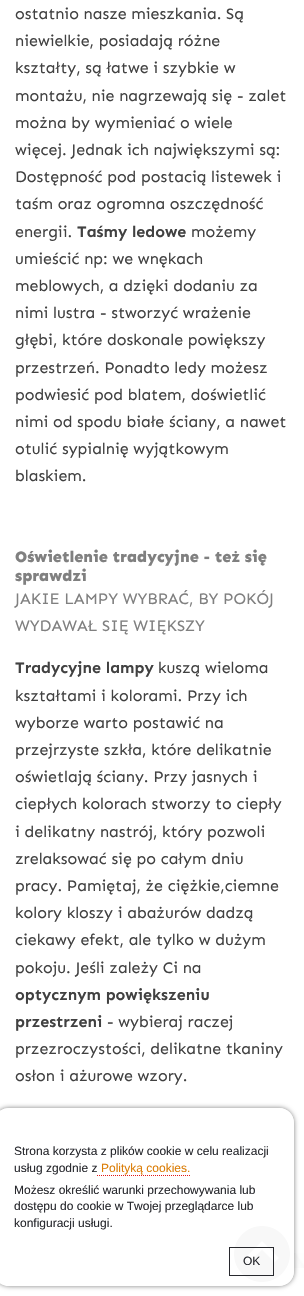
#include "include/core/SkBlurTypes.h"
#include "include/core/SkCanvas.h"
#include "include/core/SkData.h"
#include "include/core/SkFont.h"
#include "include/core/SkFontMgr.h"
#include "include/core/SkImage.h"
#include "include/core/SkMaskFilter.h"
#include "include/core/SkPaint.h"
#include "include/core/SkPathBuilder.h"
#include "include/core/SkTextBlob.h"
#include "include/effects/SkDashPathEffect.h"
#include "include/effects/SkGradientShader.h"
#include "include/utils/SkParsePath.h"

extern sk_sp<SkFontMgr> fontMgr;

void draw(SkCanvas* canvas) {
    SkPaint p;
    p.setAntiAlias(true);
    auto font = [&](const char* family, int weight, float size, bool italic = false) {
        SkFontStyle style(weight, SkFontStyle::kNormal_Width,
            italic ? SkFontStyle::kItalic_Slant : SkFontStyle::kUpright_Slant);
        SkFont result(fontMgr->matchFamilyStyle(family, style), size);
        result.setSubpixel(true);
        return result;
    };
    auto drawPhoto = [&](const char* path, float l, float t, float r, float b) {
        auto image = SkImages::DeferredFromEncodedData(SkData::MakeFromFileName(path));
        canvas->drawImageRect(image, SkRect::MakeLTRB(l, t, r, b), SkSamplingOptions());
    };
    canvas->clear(0xFFFFFFFF);
    drawPhoto("media/1.png", 294, 1253, 304, 1268);
    auto font1 = font("Sen", 400, 16);
    p.setColor(0xFF414141);
    {
        const struct { const char* s; float x, y; } items[] = {
            {"ostatnio nasze mieszkania. Są", 15, 19},
            {"niewielkie, posiadają różne", 15, 46},
            {"kształty, są łatwe i szybkie w", 15, 73},
            {"montażu, nie nagrzewają się - zalet", 15, 101},
            {"można by wymieniać o wiele", 15, 128},
            {"więcej. Jednak ich największymi są:", 15, 155},
            {"Dostępność pod postacią listewek i", 15, 182},
            {"taśm oraz ogromna oszczędność", 15, 209},
            {"energii.", 15, 237},
        };
        for (auto [s, x, y] : items) {
            canvas->drawString(s, x, y, font1, p);
        }
    }
    auto font2 = font("Sen", 700, 16);
    canvas->drawString("Taśmy ledowe", 77, 237, font2, p);
    {
        const struct { const char* s; float x, y; } items[] = {
            {"możemy", 191, 237},
            {"umieścić np: we wnękach", 15, 264},
            {"meblowych, a dzięki dodaniu za", 15, 291},
            {"nimi lustra - stworzyć wrażenie", 15, 318},
            {"głębi, które doskonale powiększy", 15, 345},
            {"przestrzeń. Ponadto ledy możesz", 15, 373},
            {"podwiesić pod blatem, doświetlić", 15, 400},
            {"nimi od spodu białe ściany, a nawet", 15, 427},
            {"otulić sypialnię wyjątkowym", 15, 454},
            {"blaskiem.", 15, 481},
        };
        for (auto [s, x, y] : items) {
            canvas->drawString(s, x, y, font1, p);
        }
    }
    auto font3 = font("Sen", 800, 16);
    p.setColor(0xFF808080);
    canvas->drawString("Oświetlenie tradycyjne - też się", 15, 562, font3, p);
    canvas->drawString("sprawdzi", 15, 581, font3, p);
    canvas->drawString("JAKIE LAMPY WYBRAĆ, BY POKÓJ", 15, 604, font1, p);
    canvas->drawString("WYDAWAŁ SIĘ WIĘKSZY", 15, 631, font1, p);
    p.setColor(0xFF414141);
    canvas->drawString("Tradycyjne lampy", 15, 673, font2, p);
    {
        const struct { const char* s; float x, y; } items[] = {
            {"kuszą wieloma", 158, 673},
            {"kształtami i kolorami. Przy ich", 15, 701},
            {"wyborze warto postawić na", 15, 728},
            {"przejrzyste szkła, które delikatnie", 15, 755},
            {"oświetlają ściany. Przy jasnych i", 15, 782},
            {"ciepłych kolorach stworzy to ciepły", 15, 809},
            {"i delikatny nastrój, który pozwoli", 15, 837},
            {"zrelaksować się po całym dniu", 15, 864},
            {"pracy. Pamiętaj, że ciężkie,ciemne", 15, 891},
            {"kolory kloszy i abażurów dadzą", 15, 918},
            {"ciekawy efekt, ale tylko w dużym", 15, 945},
            {"pokoju. Jeśli zależy Ci na", 15, 973},
        };
        for (auto [s, x, y] : items) {
            canvas->drawString(s, x, y, font1, p);
        }
    }
    canvas->drawString("optycznym powiększeniu", 15, 1000, font2, p);
    canvas->drawString("przestrzeni", 15, 1027, font2, p);
    {
        const struct { const char* s; float x, y; } items[] = {
            {"- wybieraj raczej", 107, 1027},
            {"przezroczystości, delikatne tkaniny", 15, 1054},
            {"osłon i ażurowe wzory.", 15, 1081},
        };
        for (auto [s, x, y] : items) {
            canvas->drawString(s, x, y, font1, p);
        }
    }
    drawPhoto("media/2.png", 234, 1226, 290, 1282);
    canvas->save();
    canvas->clipPath(SkPathBuilder(SkPathFillType::kEvenOdd).moveTo(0, 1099).lineTo(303, 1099).lineTo(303, 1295).lineTo(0, 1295).close().moveTo(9, 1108).lineTo(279, 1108).cubicTo(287.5f, 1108, 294, 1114.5f, 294, 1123).lineTo(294, 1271).cubicTo(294, 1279.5f, 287.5f, 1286, 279, 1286).lineTo(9, 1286).cubicTo(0.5f, 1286, -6, 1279.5f, -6, 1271).lineTo(-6, 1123).cubicTo(-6, 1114.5f, 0.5f, 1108, 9, 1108).close().detach(), true);
    p.setColor(0x80000000);
    p.setMaskFilter(SkMaskFilter::MakeBlur(kNormal_SkBlurStyle, 2.5f));
    canvas->drawRoundRect(SkRect::MakeLTRB(-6, 1108, 294, 1286), 15, 15, p);
    p.setMaskFilter(nullptr);
    canvas->restore();
    p.setColor(0xE6FFFFFF);
    canvas->drawRoundRect(SkRect::MakeLTRB(-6, 1108, 294, 1286), 15, 15, p);
    auto font4 = font("Liberation Sans", 400, 12);
    p.setColor(0xFF28292E);
    canvas->drawString("Strona korzysta z plików cookie w celu realizacji", 14, 1155, font4, p);
    canvas->drawString("usług zgodnie z", 14, 1172, font4, p);
    p.setColor(0xFFDB7D06);
    canvas->drawString("Polityką cookies.", 101, 1172, font4, p);
    p.setStyle(SkPaint::kStroke_Style);
    p.setStrokeWidth(1);
    p.setColor(0xFFE31814);
    p.setPathEffect(SkDashPathEffect::Make({{1, 1}}, 0));
    canvas->drawPath(SkPathBuilder().moveTo(97, 1175.5f).lineTo(190, 1175.5f).detach(), p);
    p.setPathEffect(nullptr);
    p.setStyle(SkPaint::kFill_Style);
    p.setColor(0xFF28292E);
    {
        const struct { const char* s; float x, y; } items[] = {
            {"Możesz określić warunki przechowywania lub", 14, 1194},
            {"dostępu do cookie w Twojej przeglądarce lub", 14, 1210},
            {"konfiguracji usługi.", 14, 1227},
        };
        for (auto [s, x, y] : items) {
            canvas->drawString(s, x, y, font4, p);
        }
    }
    p.setStyle(SkPaint::kStroke_Style);
    canvas->drawRect(SkRect::MakeLTRB(229.5f, 1247.5f, 273.5f, 1275.5f), p);
    p.setStyle(SkPaint::kFill_Style);
    canvas->drawString("OK", 243, 1265, font4, p);
}
